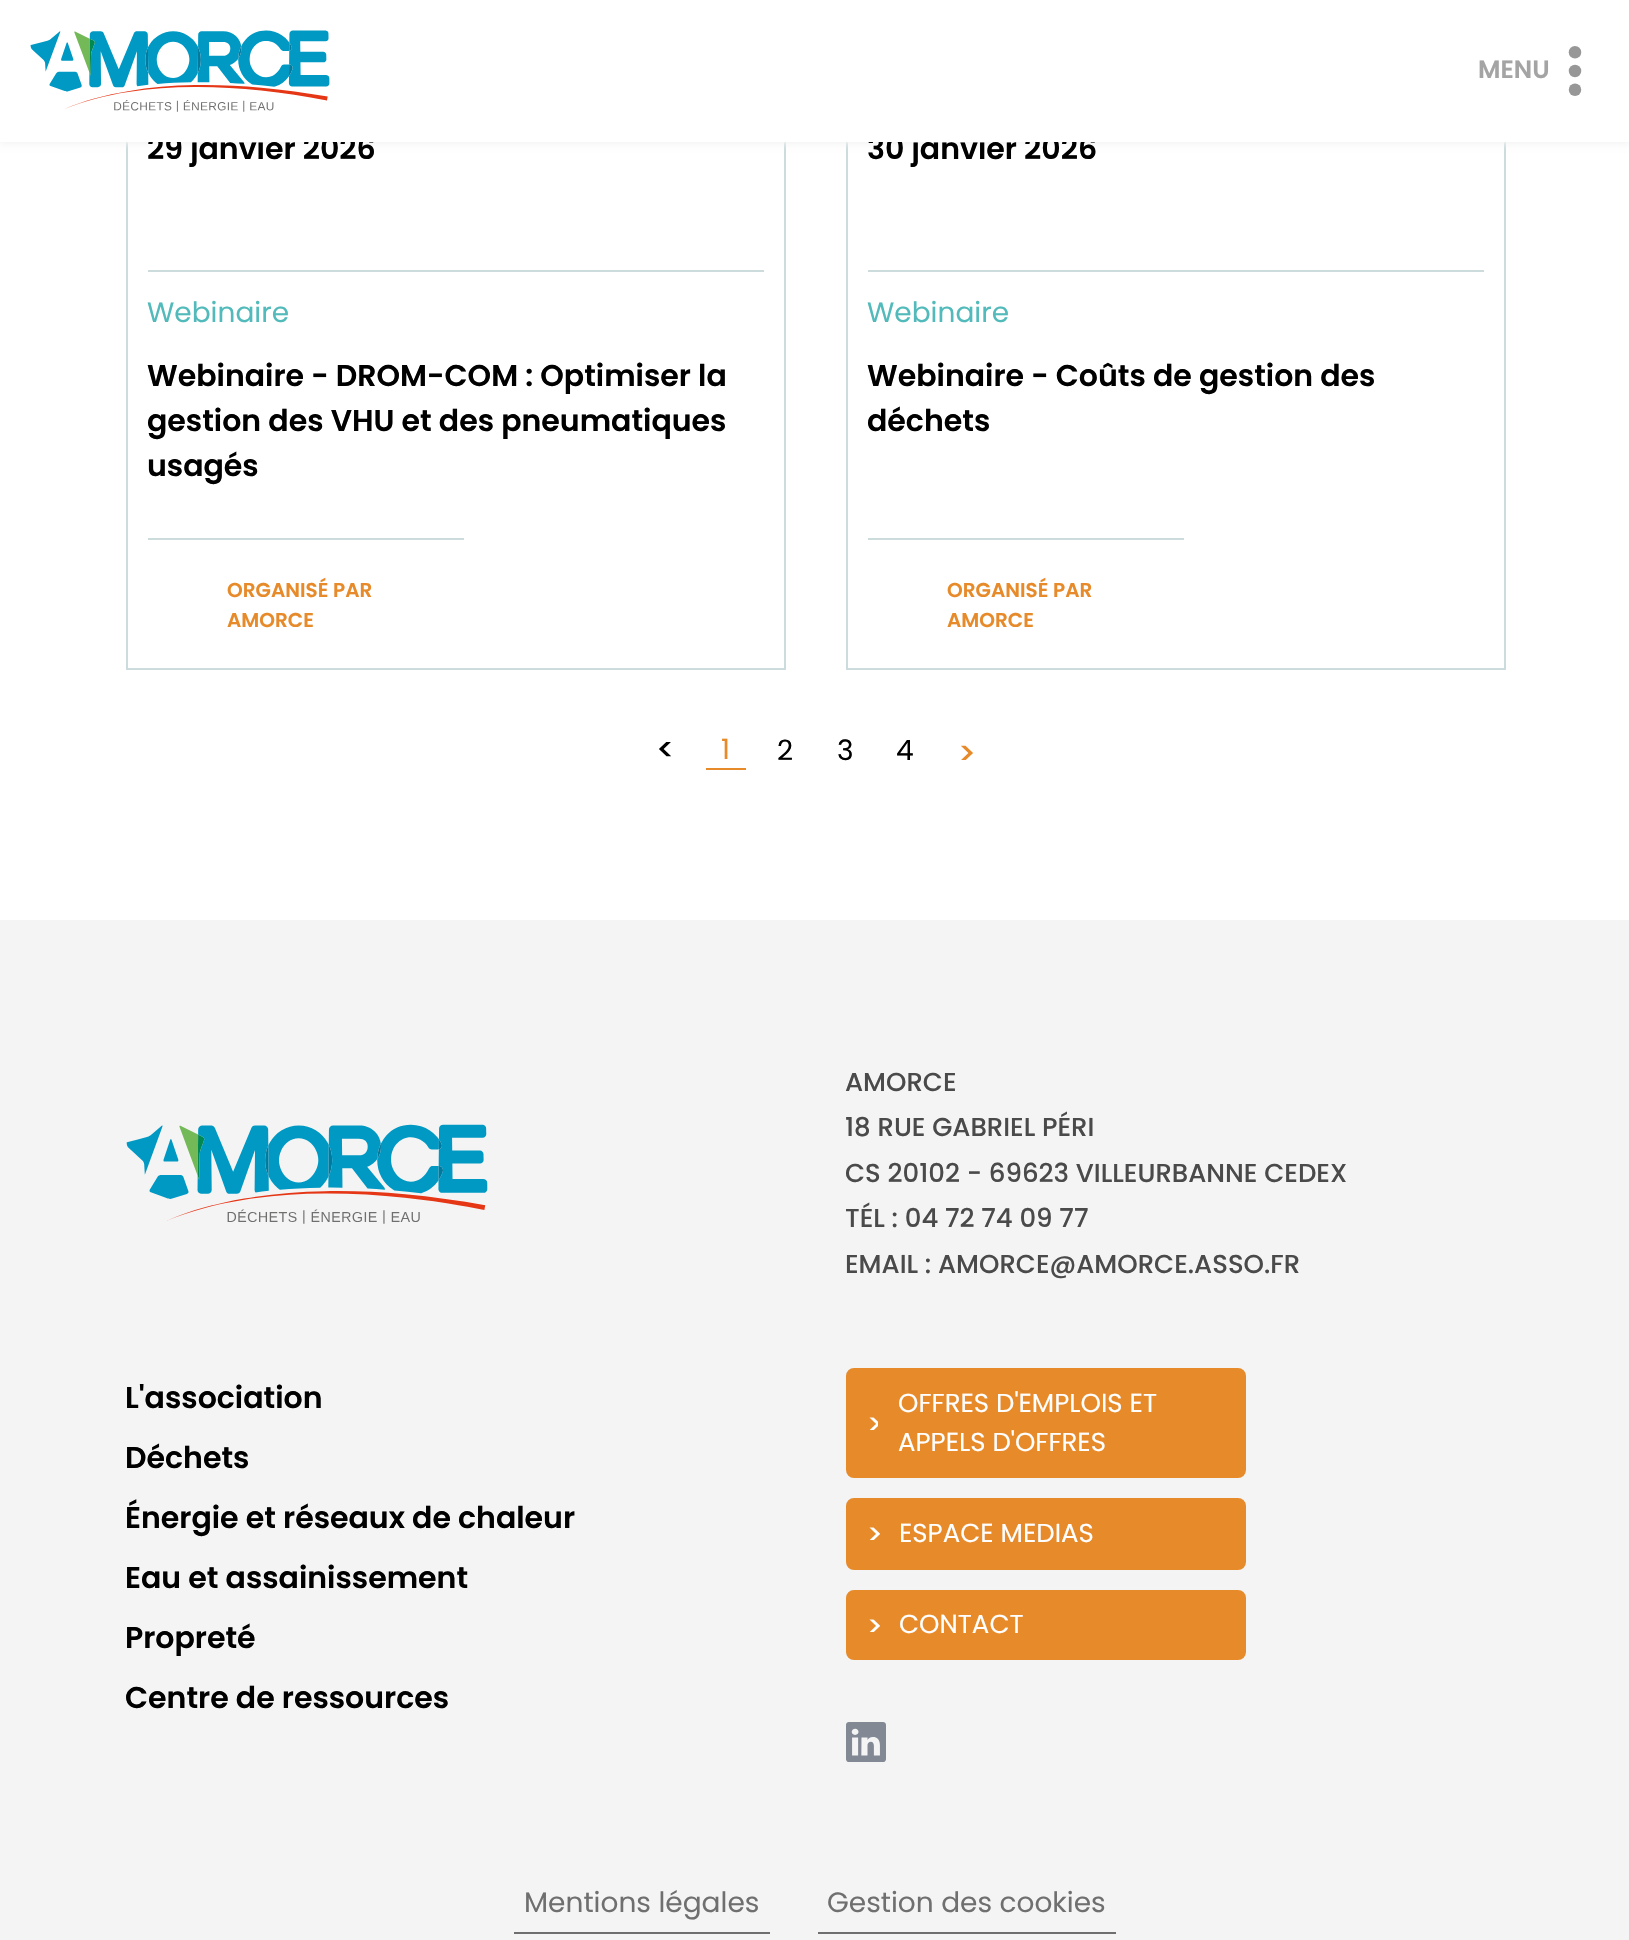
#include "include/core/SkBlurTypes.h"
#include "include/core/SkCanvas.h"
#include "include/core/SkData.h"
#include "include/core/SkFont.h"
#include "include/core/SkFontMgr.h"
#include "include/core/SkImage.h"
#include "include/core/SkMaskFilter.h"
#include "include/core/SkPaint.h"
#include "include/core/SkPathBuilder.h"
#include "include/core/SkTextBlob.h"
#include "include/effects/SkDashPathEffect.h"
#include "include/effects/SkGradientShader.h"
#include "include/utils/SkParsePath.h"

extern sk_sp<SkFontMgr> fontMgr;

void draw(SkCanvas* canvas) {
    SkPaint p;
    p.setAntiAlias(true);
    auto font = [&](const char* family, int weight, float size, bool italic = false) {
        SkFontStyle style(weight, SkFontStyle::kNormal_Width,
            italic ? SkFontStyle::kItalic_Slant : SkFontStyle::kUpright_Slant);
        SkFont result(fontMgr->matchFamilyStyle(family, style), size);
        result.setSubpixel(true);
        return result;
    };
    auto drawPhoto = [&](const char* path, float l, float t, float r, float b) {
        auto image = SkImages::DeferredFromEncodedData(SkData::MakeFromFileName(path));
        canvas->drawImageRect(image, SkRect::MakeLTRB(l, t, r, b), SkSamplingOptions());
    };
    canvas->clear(0xFFFFFFFF);
    p.setStyle(SkPaint::kStroke_Style);
    p.setStrokeWidth(2);
    p.setColor(0xFFCCDCDC);
    canvas->drawRect(SkRect::MakeLTRB(127, 105, 785, 669), p);
    canvas->drawRect(SkRect::MakeLTRB(847, 105, 1505, 669), p);
    p.setStyle(SkPaint::kFill_Style);
    p.setColor(0xFFF4F4F4);
    p.setMaskFilter(SkMaskFilter::MakeBlur(kNormal_SkBlurStyle, 3));
    canvas->drawRect(SkRect::MakeLTRB(0, 2, 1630, 144), p);
    p.setMaskFilter(nullptr);
    auto font1 = font("Poppins", 600, 30);
    p.setColor(0xFF000000);
    canvas->drawString("29 janvier 2026", 147, 159, font1, p);
    canvas->drawString("30 janvier 2026", 867, 159, font1, p);
    p.setColor(0xFFFFFFFF);
    canvas->drawRect(SkRect::MakeLTRB(0, 0, 1629, 142), p);
    drawPhoto("media/1.png", 30, 30, 330, 112);
    auto font2 = font("Poppins", 600, 25);
    p.setColor(0xFFA4A4A4);
    canvas->drawString("MENU", 1478, 78, font2, p);
    drawPhoto("media/2.png", 1568, 46, 1582, 96);
    p.setColor(0xFFCCDCDC);
    canvas->drawRect(SkRect::MakeLTRB(148, 270, 764, 272), p);
    auto font3 = font("Poppins", 400, 28);
    p.setColor(0xFF52BABA);
    canvas->drawString("Webinaire", 147, 322, font3, p);
    p.setColor(0xFF000000);
    {
        const struct { const char* s; float x, y; } items[] = {
            {"Webinaire - DROM-COM : Optimiser la", 147, 386},
            {"gestion des VHU et des pneumatiques", 147, 431},
            {"usagés", 147, 476},
        };
        for (auto [s, x, y] : items) {
            canvas->drawString(s, x, y, font1, p);
        }
    }
    p.setColor(0xFFCCDCDC);
    canvas->drawRect(SkRect::MakeLTRB(148, 538, 464, 540), p);
    auto font4 = font("Poppins", 600, 20);
    p.setColor(0xFFE78A2A);
    canvas->drawString("ORGANISÉ PAR", 227, 597, font4, p);
    canvas->drawString("AMORCE", 227, 627, font4, p);
    p.setColor(0xFFCCDCDC);
    canvas->drawRect(SkRect::MakeLTRB(868, 270, 1484, 272), p);
    p.setColor(0xFF52BABA);
    canvas->drawString("Webinaire", 867, 322, font3, p);
    p.setColor(0xFF000000);
    canvas->drawString("Webinaire - Coûts de gestion des", 867, 386, font1, p);
    canvas->drawString("déchets", 867, 431, font1, p);
    p.setColor(0xFFCCDCDC);
    canvas->drawRect(SkRect::MakeLTRB(868, 538, 1184, 540), p);
    p.setColor(0xFFE78A2A);
    canvas->drawString("ORGANISÉ PAR", 947, 597, font4, p);
    canvas->drawString("AMORCE", 947, 627, font4, p);
    drawPhoto("media/3.png", 659, 742, 671, 757);
    canvas->drawRect(SkRect::MakeLTRB(706, 768, 746, 770), p);
    canvas->drawString("1", 721, 759, font3, p);
    p.setColor(0xFF000000);
    {
        const struct { const char* s; float x, y; } items[] = {
            {"2", 777, 760},
            {"3", 837, 760},
            {"4", 896, 760},
        };
        for (auto [s, x, y] : items) {
            canvas->drawString(s, x, y, font3, p);
        }
    }
    drawPhoto("media/4.png", 961, 745, 973, 760);
    p.setColor(0xFFF4F4F4);
    canvas->drawRect(SkRect::MakeLTRB(0, 920, 1629, 1940), p);
    drawPhoto("media/5.png", 126, 1124, 488, 1224);
    auto font5 = font("Poppins", 500, 26);
    p.setColor(0xFF4A4A4A);
    {
        const struct { const char* s; float x, y; } items[] = {
            {"AMORCE", 845, 1091},
            {"18 RUE GABRIEL PÉRI", 845, 1136},
            {"CS 20102 - 69623 VILLEURBANNE CEDEX", 845, 1182},
            {"TÉL : 04 72 74 09 77", 845, 1227},
            {"EMAIL : AMORCE@AMORCE.ASSO.FR", 845, 1273},
        };
        for (auto [s, x, y] : items) {
            canvas->drawString(s, x, y, font5, p);
        }
    }
    p.setColor(0xFF000000);
    {
        const struct { const char* s; float x, y; } items[] = {
            {"L'association", 125, 1408},
            {"Déchets", 125, 1468},
            {"Énergie et réseaux de chaleur", 125, 1528},
            {"Eau et assainissement", 125, 1588},
            {"Propreté", 125, 1648},
            {"Centre de ressources", 125, 1708},
        };
        for (auto [s, x, y] : items) {
            canvas->drawString(s, x, y, font1, p);
        }
    }
    p.setColor(0xFFE78A2A);
    canvas->drawRoundRect(SkRect::MakeLTRB(847, 1369, 1245, 1477), 7, 7, p);
    p.setStyle(SkPaint::kStroke_Style);
    canvas->drawRoundRect(SkRect::MakeLTRB(847, 1369, 1245, 1477), 7, 7, p);
    auto font6 = font("Poppins", 400, 26);
    p.setStyle(SkPaint::kFill_Style);
    p.setColor(0xFFFFFFFF);
    canvas->drawString("OFFRES D'EMPLOIS ET", 898, 1412, font6, p);
    drawPhoto("media/6.png", 869, 1417, 878, 1430);
    canvas->drawString("APPELS D'OFFRES", 898, 1451, font6, p);
    p.setColor(0xFFE78A2A);
    canvas->drawRoundRect(SkRect::MakeLTRB(847, 1499, 1245, 1569), 7, 7, p);
    p.setStyle(SkPaint::kStroke_Style);
    canvas->drawRoundRect(SkRect::MakeLTRB(847, 1499, 1245, 1569), 7, 7, p);
    drawPhoto("media/7.png", 869, 1527, 880, 1540);
    p.setStyle(SkPaint::kFill_Style);
    p.setColor(0xFFFFFFFF);
    canvas->drawString("ESPACE MEDIAS", 899, 1542, font6, p);
    p.setColor(0xFFE78A2A);
    canvas->drawRoundRect(SkRect::MakeLTRB(847, 1591, 1245, 1659), 7, 7, p);
    p.setStyle(SkPaint::kStroke_Style);
    canvas->drawRoundRect(SkRect::MakeLTRB(847, 1591, 1245, 1659), 7, 7, p);
    drawPhoto("media/7.png", 869, 1619, 880, 1632);
    p.setStyle(SkPaint::kFill_Style);
    p.setColor(0xFFFFFFFF);
    canvas->drawString("CONTACT", 899, 1633, font6, p);
    drawPhoto("media/8.png", 846, 1722, 886, 1762);
    p.setColor(0xFF6F6F6F);
    canvas->drawString("Mentions légales", 524, 1912, font3, p);
    canvas->drawRect(SkRect::MakeLTRB(514, 1932, 770, 1934), p);
    canvas->drawString("Gestion des cookies", 827, 1912, font3, p);
    canvas->drawRect(SkRect::MakeLTRB(818, 1932, 1116, 1934), p);
}
